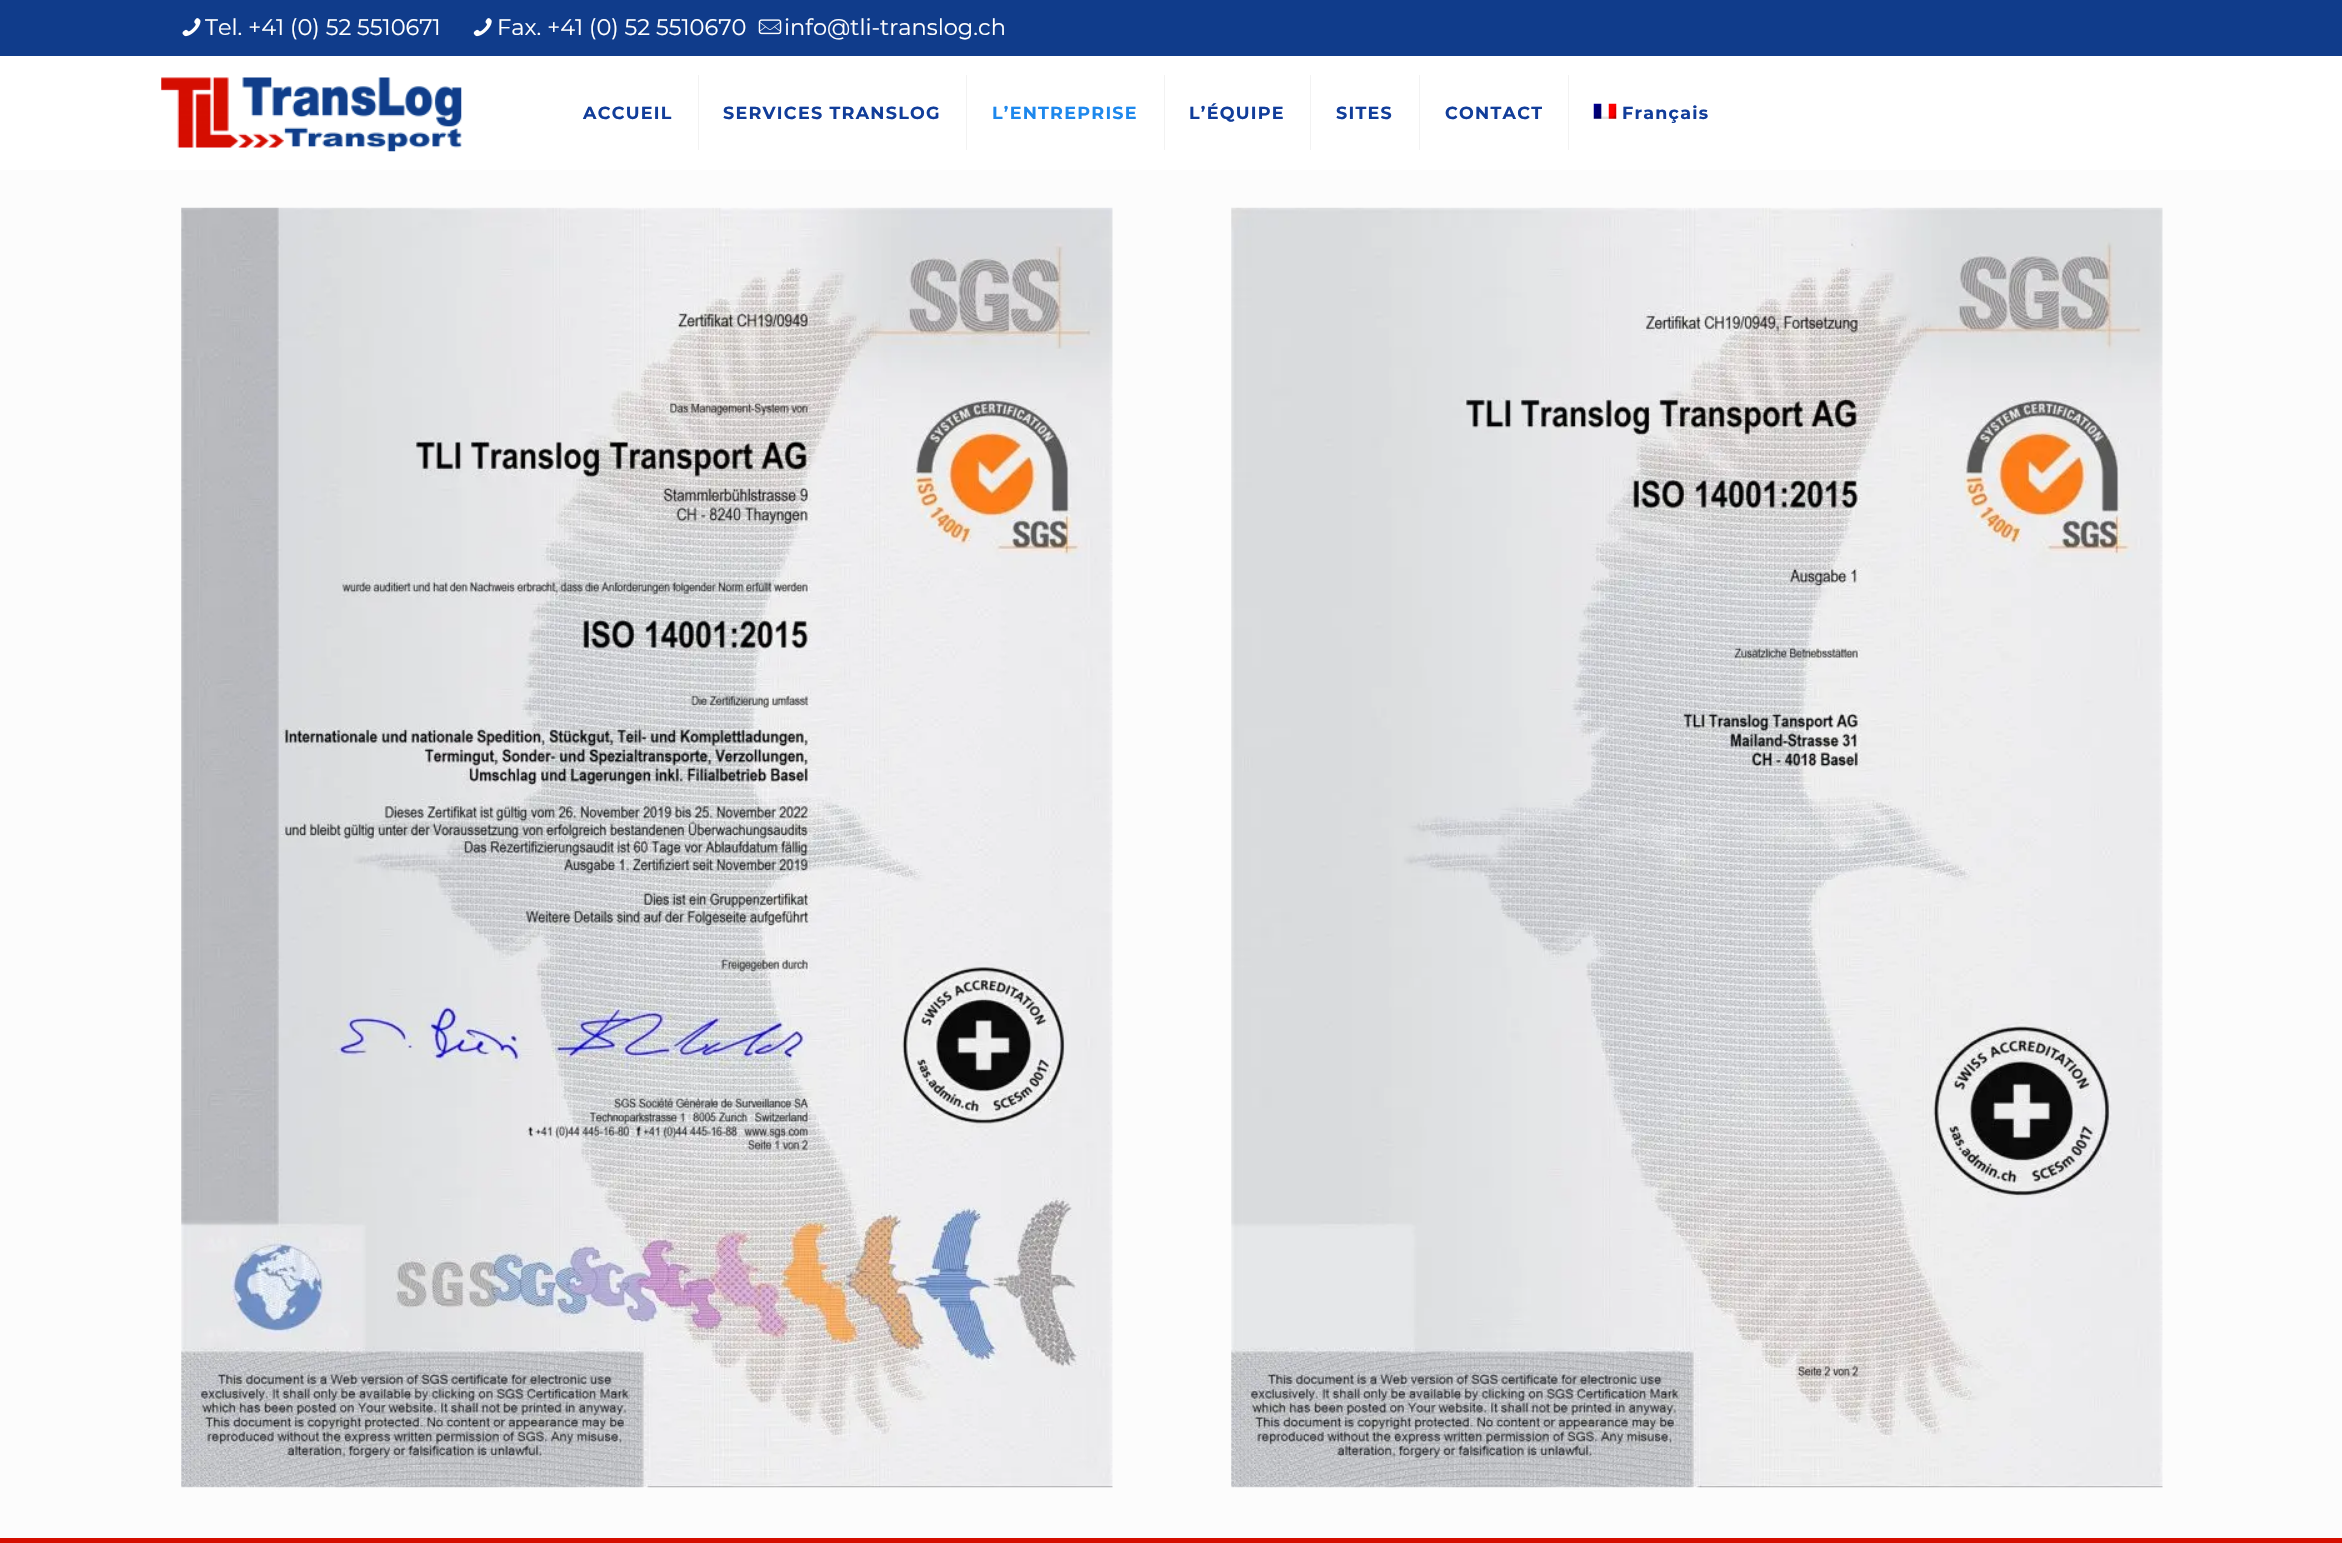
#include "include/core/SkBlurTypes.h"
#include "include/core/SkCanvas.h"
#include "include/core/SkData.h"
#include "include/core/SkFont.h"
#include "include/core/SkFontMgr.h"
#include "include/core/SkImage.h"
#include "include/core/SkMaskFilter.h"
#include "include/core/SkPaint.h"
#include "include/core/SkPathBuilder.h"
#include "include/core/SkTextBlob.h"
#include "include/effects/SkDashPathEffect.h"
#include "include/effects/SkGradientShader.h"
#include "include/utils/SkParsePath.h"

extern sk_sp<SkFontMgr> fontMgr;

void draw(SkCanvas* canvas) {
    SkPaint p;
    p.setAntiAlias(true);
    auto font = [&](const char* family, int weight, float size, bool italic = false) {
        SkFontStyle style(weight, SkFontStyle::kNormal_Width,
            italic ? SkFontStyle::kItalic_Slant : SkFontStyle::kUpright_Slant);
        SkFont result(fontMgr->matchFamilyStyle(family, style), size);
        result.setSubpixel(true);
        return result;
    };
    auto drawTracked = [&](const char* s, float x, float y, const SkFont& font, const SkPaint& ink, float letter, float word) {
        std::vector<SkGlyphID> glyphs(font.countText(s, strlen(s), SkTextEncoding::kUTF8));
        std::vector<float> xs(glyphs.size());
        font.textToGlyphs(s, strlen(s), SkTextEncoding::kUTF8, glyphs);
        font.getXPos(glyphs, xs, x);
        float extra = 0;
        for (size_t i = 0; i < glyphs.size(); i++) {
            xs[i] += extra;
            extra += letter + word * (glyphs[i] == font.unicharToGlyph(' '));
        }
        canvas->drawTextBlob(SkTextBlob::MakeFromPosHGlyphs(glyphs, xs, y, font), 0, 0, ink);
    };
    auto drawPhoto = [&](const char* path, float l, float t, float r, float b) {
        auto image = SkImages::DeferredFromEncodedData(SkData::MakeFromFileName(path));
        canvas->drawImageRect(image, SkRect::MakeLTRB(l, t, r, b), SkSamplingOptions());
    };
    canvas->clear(0xFFFCFCFC);
    p.setColor(0xFFFFFFFF);
    canvas->drawRect(SkRect::MakeLTRB(0, 56, 2342, 170), p);
    p.setColor(0xFF103C8B);
    canvas->drawRect(SkRect::MakeLTRB(0, 0, 2342, 56), p);
    drawPhoto("media/1.png", 182, 18, 201, 37);
    auto font1 = font("Montserrat", 100, 22.5f);
    p.setColor(0xFFFFFFFF);
    canvas->drawString("Tel. +41 (0) 52 5510671", 205, 35, font1, p);
    drawPhoto("media/2.png", 473, 18, 492, 37);
    canvas->drawString("Fax. +41 (0) 52 5510670", 497, 35, font1, p);
    drawPhoto("media/3.png", 758, 19, 782, 35);
    canvas->drawString("info@tli-translog.ch", 784, 35, font1, p);
    drawPhoto("media/4.png", 161, 77, 462, 152);
    p.setColor(0xFFF2F2F2);
    canvas->drawRect(SkRect::MakeLTRB(698, 75, 699, 150), p);
    auto font2 = font("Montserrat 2", 100, 17.5f);
    p.setColor(0xFF113D9A);
    drawTracked("ACCUEIL", 583, 119, font2, p, 1.25f, 0);
    p.setColor(0xFFF2F2F2);
    canvas->drawRect(SkRect::MakeLTRB(966, 75, 967, 150), p);
    p.setColor(0xFF113D9A);
    drawTracked("SERVICES TRANSLOG", 723, 119, font2, p, 1.25f, 0);
    p.setColor(0xFFF2F2F2);
    canvas->drawRect(SkRect::MakeLTRB(1164, 75, 1165, 150), p);
    p.setColor(0xFF1D88ED);
    drawTracked("L’ENTREPRISE", 992, 119, font2, p, 1.25f, 0);
    p.setColor(0xFFF2F2F2);
    canvas->drawRect(SkRect::MakeLTRB(1310, 75, 1311, 150), p);
    p.setColor(0xFF113D9A);
    drawTracked("L’ÉQUIPE", 1189, 119, font2, p, 1.25f, 0);
    p.setColor(0xFFF2F2F2);
    canvas->drawRect(SkRect::MakeLTRB(1419, 75, 1420, 150), p);
    p.setColor(0xFF113D9A);
    drawTracked("SITES", 1336, 119, font2, p, 1.25f, 0);
    p.setColor(0xFFF2F2F2);
    canvas->drawRect(SkRect::MakeLTRB(1568, 75, 1569, 150), p);
    p.setColor(0xFF113D9A);
    drawTracked("CONTACT", 1445, 119, font2, p, 1.25f, 0);
    drawPhoto("media/5.png", 1593, 103, 1617, 119);
    drawTracked("Français", 1622, 119, font2, p, 1.25f, 0);
    drawPhoto("media/6.png", 181, 207, 1113, 1488);
    drawPhoto("media/7.png", 1231, 207, 2163, 1488);
    p.setColor(0xFFD50E00);
    canvas->drawRect(SkRect::MakeLTRB(0, 1538, 2342, 1543), p);
}
